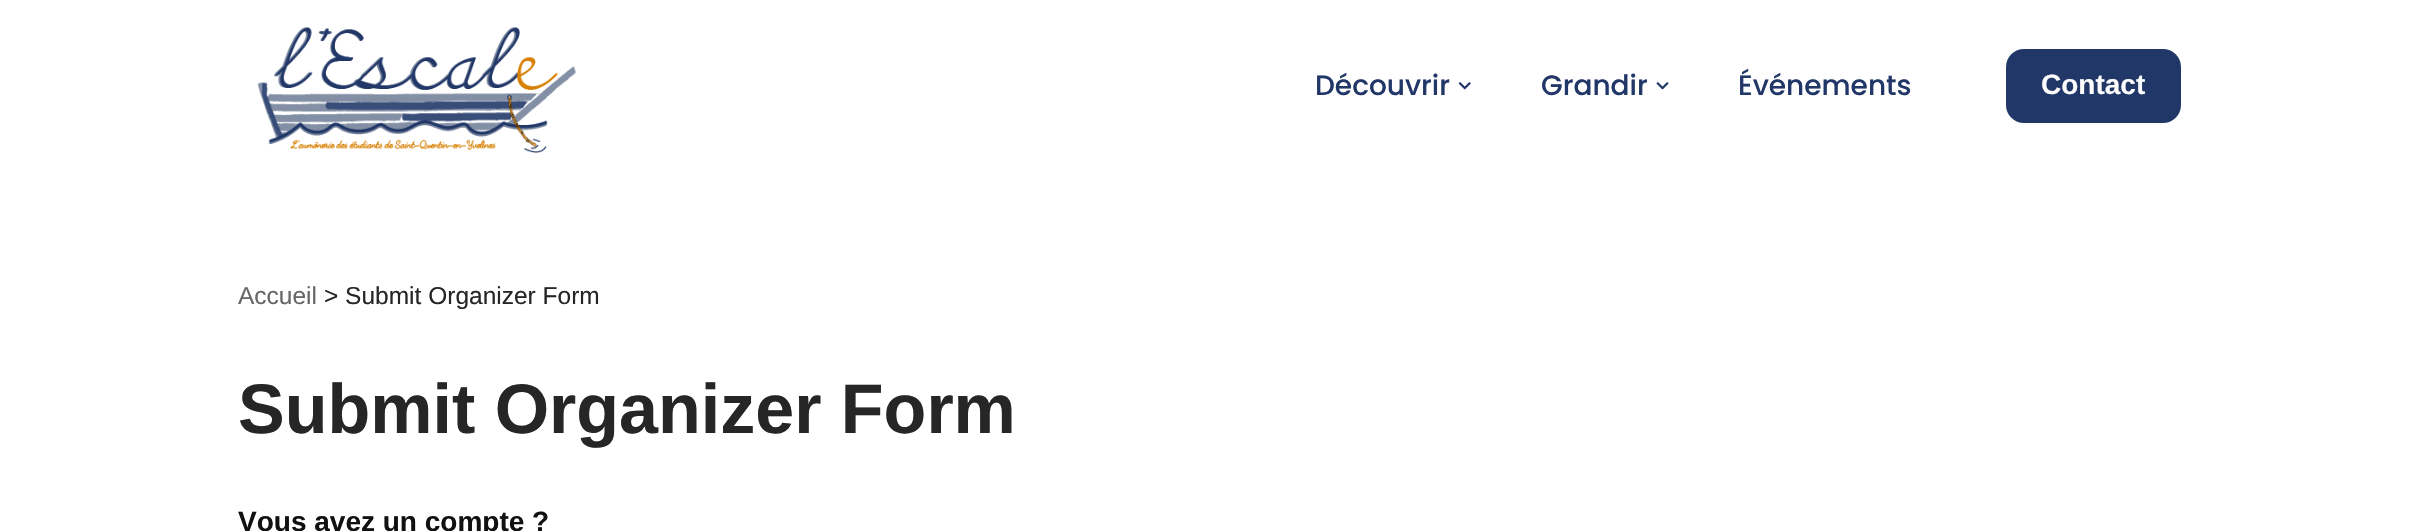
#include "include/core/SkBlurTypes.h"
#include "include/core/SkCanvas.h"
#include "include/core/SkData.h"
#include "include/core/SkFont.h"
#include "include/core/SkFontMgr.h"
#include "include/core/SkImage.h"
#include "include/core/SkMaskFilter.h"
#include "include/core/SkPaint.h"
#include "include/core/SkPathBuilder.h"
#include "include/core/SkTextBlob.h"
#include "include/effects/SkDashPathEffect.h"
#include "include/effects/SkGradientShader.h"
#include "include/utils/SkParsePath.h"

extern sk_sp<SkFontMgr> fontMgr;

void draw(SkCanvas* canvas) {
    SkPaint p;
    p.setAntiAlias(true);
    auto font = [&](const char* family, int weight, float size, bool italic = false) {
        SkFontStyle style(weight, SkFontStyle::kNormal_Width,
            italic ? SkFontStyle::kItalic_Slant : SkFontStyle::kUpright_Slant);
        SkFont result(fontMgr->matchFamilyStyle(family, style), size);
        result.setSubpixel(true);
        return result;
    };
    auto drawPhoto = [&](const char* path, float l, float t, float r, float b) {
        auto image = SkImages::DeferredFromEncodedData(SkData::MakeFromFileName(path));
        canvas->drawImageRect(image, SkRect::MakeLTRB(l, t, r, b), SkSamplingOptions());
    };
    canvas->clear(0xFFFFFFFF);
    drawPhoto("media/1.png", 257, 27, 577, 153);
    auto font1 = font("Poppins", 500, 28);
    p.setColor(0xFF213768);
    canvas->drawString("Découvrir", 1315, 95, font1, p);
    drawPhoto("media/2.png", 1458, 82, 1471, 90);
    canvas->drawString("Grandir", 1541, 95, font1, p);
    drawPhoto("media/3.png", 1656, 82, 1669, 90);
    canvas->drawString("Événements", 1738, 95, font1, p);
    canvas->drawRoundRect(SkRect::MakeLTRB(2006, 49, 2181, 123), 18, 18, p);
    auto font2 = font("Liberation Sans", 700, 28);
    p.setColor(0xFFFEFDFD);
    canvas->drawString("Contact", 2041, 94, font2, p);
    auto font3 = font("Liberation Sans", 400, 24.5f);
    p.setColor(0xFF676767);
    canvas->drawString("Accueil", 238, 304, font3, p);
    p.setColor(0xFF272626);
    canvas->drawString("> Submit Organizer Form", 324, 304, font3, p);
    auto font4 = font("Liberation Sans", 700, 70);
    canvas->drawString("Submit Organizer Form", 238, 433, font4, p);
    p.setColor(0xFF111111);
    canvas->drawString("Vous avez un compte ?", 238, 531, font2, p);
}
